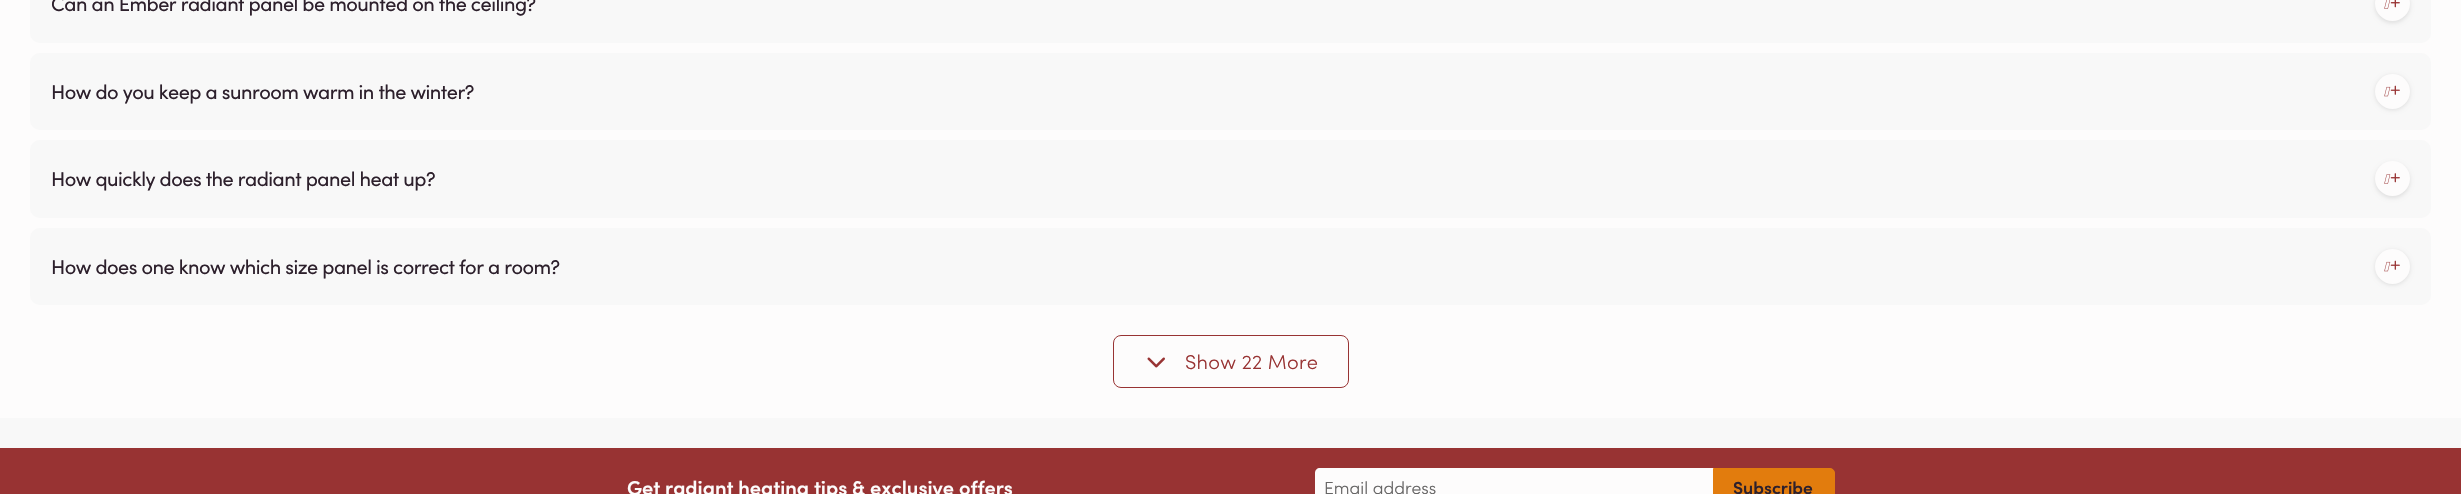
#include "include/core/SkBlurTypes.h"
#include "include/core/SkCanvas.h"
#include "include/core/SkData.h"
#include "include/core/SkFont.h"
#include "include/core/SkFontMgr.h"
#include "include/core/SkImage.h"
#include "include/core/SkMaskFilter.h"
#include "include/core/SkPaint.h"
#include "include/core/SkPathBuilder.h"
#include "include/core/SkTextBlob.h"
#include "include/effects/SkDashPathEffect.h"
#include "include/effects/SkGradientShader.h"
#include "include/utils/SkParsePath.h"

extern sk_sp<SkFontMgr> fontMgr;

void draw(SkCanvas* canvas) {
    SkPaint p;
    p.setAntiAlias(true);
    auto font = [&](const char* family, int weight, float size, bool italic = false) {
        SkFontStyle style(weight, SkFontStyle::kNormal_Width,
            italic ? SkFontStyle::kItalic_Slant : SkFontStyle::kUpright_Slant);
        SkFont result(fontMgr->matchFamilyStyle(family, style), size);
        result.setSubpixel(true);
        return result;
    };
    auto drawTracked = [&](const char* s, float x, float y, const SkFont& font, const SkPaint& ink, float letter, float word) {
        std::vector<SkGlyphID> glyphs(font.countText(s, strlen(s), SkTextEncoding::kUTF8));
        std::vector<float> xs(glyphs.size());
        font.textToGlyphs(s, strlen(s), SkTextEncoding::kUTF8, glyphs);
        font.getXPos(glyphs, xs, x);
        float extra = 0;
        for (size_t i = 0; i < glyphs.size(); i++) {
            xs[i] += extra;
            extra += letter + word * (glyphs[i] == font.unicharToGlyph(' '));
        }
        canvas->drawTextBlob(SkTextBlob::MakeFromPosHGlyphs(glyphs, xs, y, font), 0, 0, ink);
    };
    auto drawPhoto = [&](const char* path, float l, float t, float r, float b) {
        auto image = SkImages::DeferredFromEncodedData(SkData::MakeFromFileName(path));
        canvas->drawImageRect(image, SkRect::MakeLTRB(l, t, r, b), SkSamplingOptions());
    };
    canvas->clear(0xFFFDFCFC);
    p.setColor(0xFFF8F8F8);
    canvas->drawRoundRect(SkRect::MakeLTRB(30, -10, 2431, 43), 10, 10, p);
    auto font1 = font("Sofia", 400, 20);
    p.setColor(0xFF2D202C);
    drawTracked("Can an Ember radiant panel be mounted on the ceiling?", 51, 11, font1, p, -0.5f, 0);
    p.setColor(0x1A000000);
    p.setMaskFilter(SkMaskFilter::MakeBlur(kNormal_SkBlurStyle, 2));
    canvas->drawRoundRect(SkRect::MakeLTRB(2375, -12, 2410, 23), 17.5f, 17.5f, p);
    p.setMaskFilter(nullptr);
    p.setColor(0xFFFDFCFC);
    canvas->drawCircle(2392.5f, 3.5f, 17.5f, p);
    drawPhoto("media/1.png", 2384, 0, 2391, 9);
    drawPhoto("media/2.png", 2390, 0, 2400, 8);
    p.setColor(0xFFF8F8F8);
    canvas->drawRoundRect(SkRect::MakeLTRB(30, 53, 2431, 130), 10, 10, p);
    p.setColor(0xFF2D202C);
    drawTracked("How do you keep a sunroom warm in the winter?", 51, 99, font1, p, -0.5f, 0);
    p.setColor(0x1A000000);
    p.setMaskFilter(SkMaskFilter::MakeBlur(kNormal_SkBlurStyle, 2));
    canvas->drawRoundRect(SkRect::MakeLTRB(2375, 75, 2410, 110), 17.5f, 17.5f, p);
    p.setMaskFilter(nullptr);
    p.setColor(0xFFFDFCFC);
    canvas->drawCircle(2392.5f, 91.5f, 17.5f, p);
    drawPhoto("media/3.png", 2384, 86, 2391, 97);
    drawPhoto("media/4.png", 2390, 85, 2400, 95);
    p.setColor(0xFFF8F8F8);
    canvas->drawRoundRect(SkRect::MakeLTRB(30, 140, 2431, 218), 10, 10, p);
    p.setColor(0xFF2D202C);
    drawTracked("How quickly does the radiant panel heat up?", 51, 186, font1, p, -0.5f, 0);
    p.setColor(0x1A000000);
    p.setMaskFilter(SkMaskFilter::MakeBlur(kNormal_SkBlurStyle, 2));
    canvas->drawRoundRect(SkRect::MakeLTRB(2375, 163, 2410, 198), 17.5f, 17.5f, p);
    p.setMaskFilter(nullptr);
    p.setColor(0xFFFDFCFC);
    canvas->drawCircle(2392.5f, 178.5f, 17.5f, p);
    drawPhoto("media/5.png", 2384, 174, 2391, 184);
    drawPhoto("media/6.png", 2390, 173, 2400, 183);
    p.setColor(0xFFF8F8F8);
    canvas->drawRoundRect(SkRect::MakeLTRB(30, 228, 2431, 305), 10, 10, p);
    p.setColor(0xFF2D202C);
    drawTracked("How does one know which size panel is correct for a room?", 51, 274, font1, p, -0.5f, 0);
    p.setColor(0x1A000000);
    p.setMaskFilter(SkMaskFilter::MakeBlur(kNormal_SkBlurStyle, 2));
    canvas->drawRoundRect(SkRect::MakeLTRB(2375, 250, 2410, 285), 17.5f, 17.5f, p);
    p.setMaskFilter(nullptr);
    p.setColor(0xFFFDFCFC);
    canvas->drawCircle(2392.5f, 266.5f, 17.5f, p);
    drawPhoto("media/3.png", 2384, 261, 2391, 272);
    drawPhoto("media/4.png", 2390, 260, 2400, 270);
    p.setStyle(SkPaint::kStroke_Style);
    p.setStrokeWidth(1);
    p.setColor(0xFF983333);
    canvas->drawRoundRect(SkRect::MakeLTRB(1113.5f, 335.5f, 1348.5f, 387.5f), 7.5f, 7.5f, p);
    drawPhoto("media/7.png", 1147, 357, 1165, 368);
    auto font2 = font("Sofia", 300, 20);
    p.setStyle(SkPaint::kFill_Style);
    drawTracked("Show 22 More", 1185, 369, font2, p, 0.25f, 0);
    p.setColor(0xFFF8F8F8);
    canvas->drawRect(SkRect::MakeLTRB(0, 418, 2461, 448), p);
    p.setColor(0xFF983333);
    canvas->drawRect(SkRect::MakeLTRB(0, 448, 2461, 494), p);
    auto font3 = font("Sofia", 600, 20);
    p.setColor(0xFFFDFCFC);
    canvas->drawString("Get radiant heating tips & exclusive offers", 627, 495, font3, p);
    canvas->drawPath(SkPathBuilder().moveTo(1320, 468).lineTo(1714, 468).lineTo(1714, 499).lineTo(1320, 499).cubicTo(1317, 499, 1315, 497, 1315, 494).lineTo(1315, 473).cubicTo(1315, 470, 1317, 468, 1320, 468).close().detach(), p);
    auto font4 = font("Sofia", 300, 17.5f);
    p.setColor(0xFF666565);
    canvas->drawString("Email address", 1324, 494, font4, p);
    p.setColor(0xFFE27C0D);
    canvas->drawPath(SkPathBuilder().moveTo(1713.5f, 468.5f).lineTo(1830, 468.5f).cubicTo(1832.5f, 468.5f, 1834.5f, 470.5f, 1834.5f, 473).lineTo(1834.5f, 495).cubicTo(1834.5f, 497.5f, 1832.5f, 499.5f, 1830, 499.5f).lineTo(1713.5f, 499.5f).close().detach(), p);
    p.setStyle(SkPaint::kStroke_Style);
    canvas->drawPath(SkPathBuilder().moveTo(1713.5f, 468.5f).lineTo(1830, 468.5f).cubicTo(1832.5f, 468.5f, 1834.5f, 470.5f, 1834.5f, 473).lineTo(1834.5f, 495).cubicTo(1834.5f, 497.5f, 1832.5f, 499.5f, 1830, 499.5f).lineTo(1713.5f, 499.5f).close().detach(), p);
    auto font5 = font("Sofia", 600, 17.5f);
    p.setStyle(SkPaint::kFill_Style);
    p.setColor(0xFF2D202C);
    canvas->drawString("Subscribe", 1733, 494, font5, p);
}
